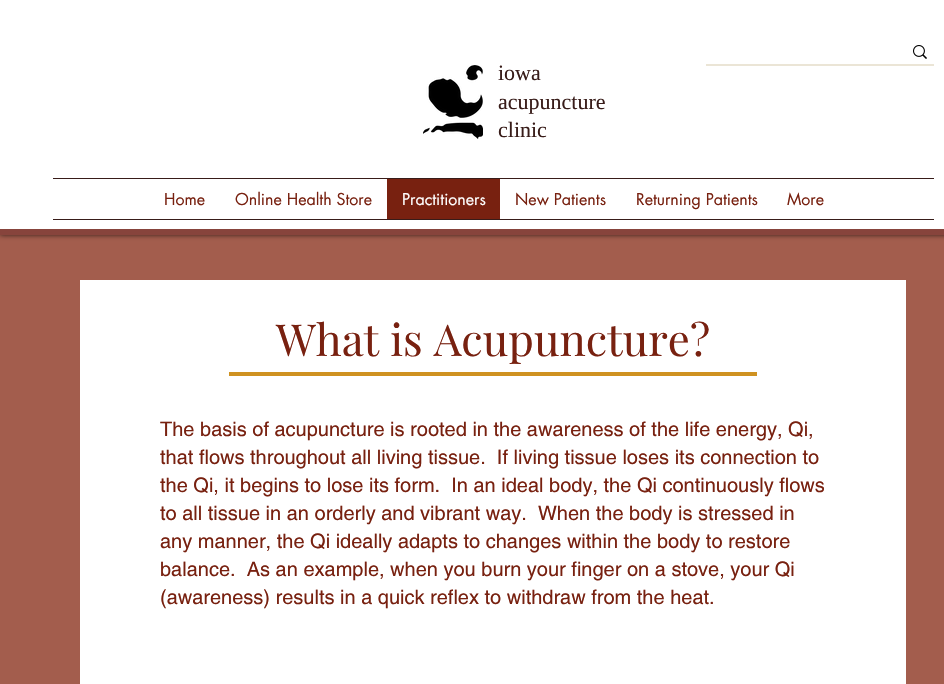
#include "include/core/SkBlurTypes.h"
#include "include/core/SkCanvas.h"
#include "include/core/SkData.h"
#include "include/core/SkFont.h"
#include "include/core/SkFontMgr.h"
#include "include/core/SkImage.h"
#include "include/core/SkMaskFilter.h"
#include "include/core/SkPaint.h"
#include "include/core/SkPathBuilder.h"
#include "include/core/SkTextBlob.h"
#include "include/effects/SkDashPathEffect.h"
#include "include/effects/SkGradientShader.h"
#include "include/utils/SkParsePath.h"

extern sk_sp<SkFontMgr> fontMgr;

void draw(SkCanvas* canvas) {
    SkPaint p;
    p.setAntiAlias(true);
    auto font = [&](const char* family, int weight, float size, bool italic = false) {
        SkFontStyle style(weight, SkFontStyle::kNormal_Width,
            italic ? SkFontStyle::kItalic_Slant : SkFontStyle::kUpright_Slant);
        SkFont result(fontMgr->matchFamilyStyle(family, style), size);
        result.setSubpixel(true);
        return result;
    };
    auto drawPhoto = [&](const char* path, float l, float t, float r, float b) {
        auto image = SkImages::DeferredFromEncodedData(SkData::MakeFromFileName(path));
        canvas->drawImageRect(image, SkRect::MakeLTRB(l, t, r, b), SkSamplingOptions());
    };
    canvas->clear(0xFFA35D4D);
    p.setColor(0xB3000000);
    p.setMaskFilter(SkMaskFilter::MakeBlur(kNormal_SkBlurStyle, 2.5f));
    canvas->drawRect(SkRect::MakeLTRB(0, 0, 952, 235), p);
    p.setMaskFilter(nullptr);
    {
        const struct { float l, t, r, b; SkColor color; } items[] = {
            {0, 229, 944, 235, 0xFF87443C},
            {0, 0, 944, 229, 0xFFFFFFFF},
            {706, 64, 934, 66, 0xFFEBE5D6},
        };
        for (auto [l, t, r, b, color] : items) {
            p.setColor(color);
            canvas->drawRect(SkRect::MakeLTRB(l, t, r, b), p);
        }
    }
    drawPhoto("media/1.png", 913, 45, 927, 59);
    drawPhoto("media/2.png", 423, 65, 483, 139);
    auto font1 = font("Liberation Serif", 400, 22);
    p.setColor(0xFF381C19);
    {
        const struct { const char* s; float x, y; } items[] = {
            {"iowa", 498, 80},
            {"acupuncture", 498, 109},
            {"clinic", 498, 137},
        };
        for (auto [s, x, y] : items) {
            canvas->drawString(s, x, y, font1, p);
        }
    }
    canvas->drawRect(SkRect::MakeLTRB(53, 178, 934, 179), p);
    canvas->drawRect(SkRect::MakeLTRB(53, 219, 934, 220), p);
    auto font2 = font("futura", 400, 16);
    p.setColor(0xFF782110);
    canvas->drawString("Home", 164, 205, font2, p);
    canvas->drawString("Online Health Store", 235, 205, font2, p);
    canvas->drawRect(SkRect::MakeLTRB(387, 179, 500, 219), p);
    p.setColor(0xFFFFFFFF);
    canvas->drawString("Practitioners", 402, 205, font2, p);
    p.setColor(0xFF782110);
    {
        const struct { const char* s; float x, y; } items[] = {
            {"New Patients", 515, 205},
            {"Returning Patients", 636, 205},
            {"More", 787, 205},
        };
        for (auto [s, x, y] : items) {
            canvas->drawString(s, x, y, font2, p);
        }
    }
    p.setColor(0xFFFFFFFF);
    canvas->drawRect(SkRect::MakeLTRB(80, 280, 906, 684), p);
    auto font3 = font("Playfair Display", 400, 44);
    p.setColor(0xFF782110);
    canvas->drawString("What is Acupuncture?", 276, 356, font3, p);
    p.setColor(0xFFCF9221);
    canvas->drawRect(SkRect::MakeLTRB(229, 372, 757, 376), p);
    auto font4 = font("helvetica", 400, 20);
    p.setColor(0xFF782110);
    {
        const struct { const char* s; float x, y; } items[] = {
            {"The basis of acupuncture is rooted in the awareness of the life energy, Qi,", 160, 436},
            {"that flows throughout all living tissue.  If living tissue loses its connection to", 160, 464},
            {"the Qi, it begins to lose its form.  In an ideal body, the Qi continuously flows", 160, 492},
            {"to all tissue in an orderly and vibrant way.  When the body is stressed in", 160, 520},
            {"any manner, the Qi ideally adapts to changes within the body to restore", 160, 548},
            {"balance.  As an example, when you burn your finger on a stove, your Qi", 160, 576},
            {"(awareness) results in a quick reflex to withdraw from the heat.", 160, 604},
        };
        for (auto [s, x, y] : items) {
            canvas->drawString(s, x, y, font4, p);
        }
    }
}
